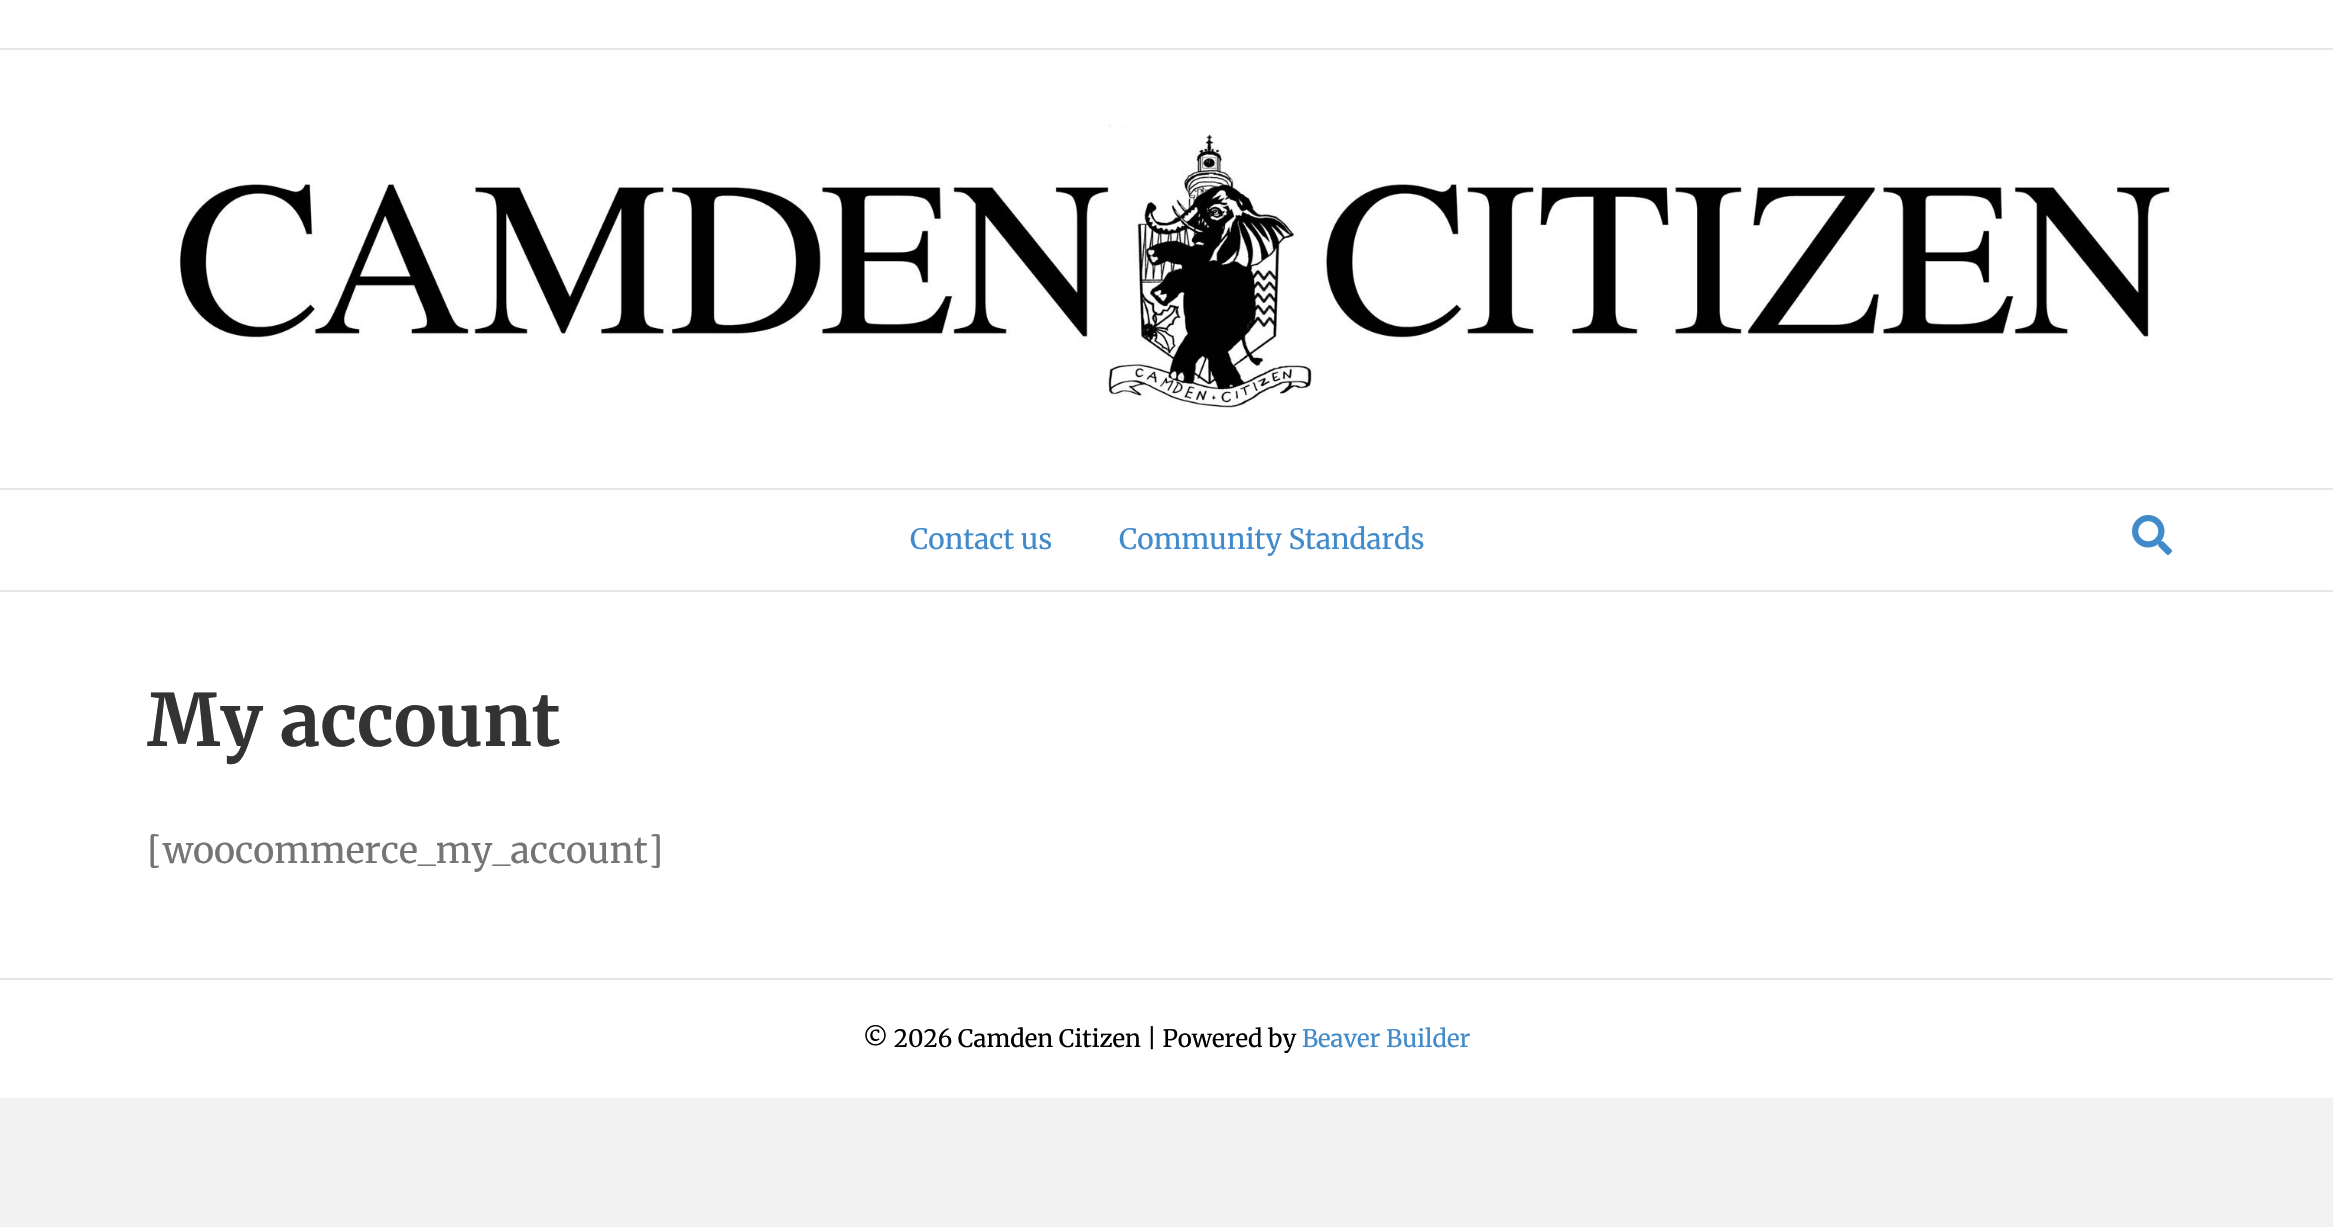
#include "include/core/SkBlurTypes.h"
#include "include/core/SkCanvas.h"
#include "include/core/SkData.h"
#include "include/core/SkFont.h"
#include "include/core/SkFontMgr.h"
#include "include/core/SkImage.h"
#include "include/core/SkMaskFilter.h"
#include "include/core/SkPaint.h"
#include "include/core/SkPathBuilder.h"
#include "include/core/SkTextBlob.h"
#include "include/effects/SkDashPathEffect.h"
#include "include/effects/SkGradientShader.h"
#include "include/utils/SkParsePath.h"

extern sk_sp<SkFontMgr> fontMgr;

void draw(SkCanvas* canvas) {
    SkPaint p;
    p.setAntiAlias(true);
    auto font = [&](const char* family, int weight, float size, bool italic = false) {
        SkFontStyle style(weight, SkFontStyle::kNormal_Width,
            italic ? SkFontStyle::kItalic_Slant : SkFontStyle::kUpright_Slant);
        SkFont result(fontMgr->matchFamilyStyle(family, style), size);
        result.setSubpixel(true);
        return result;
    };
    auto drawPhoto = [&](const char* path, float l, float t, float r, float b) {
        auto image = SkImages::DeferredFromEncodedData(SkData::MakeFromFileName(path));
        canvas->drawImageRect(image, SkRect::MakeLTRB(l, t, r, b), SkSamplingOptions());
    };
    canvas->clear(0xFFF2F2F2);
    {
        const struct { float l, t, r, b; SkColor color; } items[] = {
            {0, 0, 2333, 48, 0xFFFFFFFF},
            {0, 48, 2333, 50, 0xFFE6E6E6},
            {0, 50, 2333, 590, 0xFFFFFFFF},
        };
        for (auto [l, t, r, b, color] : items) {
            p.setColor(color);
            canvas->drawRect(SkRect::MakeLTRB(l, t, r, b), p);
        }
    }
    drawPhoto("media/1.png", 179, 123, 2174, 409);
    p.setColor(0xFFE6E6E6);
    canvas->drawRect(SkRect::MakeLTRB(0, 488, 2333, 490), p);
    canvas->drawRect(SkRect::MakeLTRB(0, 590, 2333, 592), p);
    auto font1 = font("Merriweather", 400, 28);
    p.setColor(0xFF428BCA);
    canvas->drawString("Contact us", 910, 549, font1, p);
    canvas->drawString("Community Standards", 1119, 549, font1, p);
    drawPhoto("media/2.png", 2132, 515, 2172, 555);
    p.setColor(0xFFFFFFFF);
    canvas->drawRect(SkRect::MakeLTRB(0, 592, 2333, 978), p);
    auto font2 = font("Merriweather", 700, 72);
    p.setColor(0xFF333333);
    canvas->drawString("My account", 147, 746, font2, p);
    auto font3 = font("Merriweather", 400, 36);
    p.setColor(0xFF757575);
    canvas->drawString("[woocommerce_my_account]", 147, 863, font3, p);
    p.setColor(0xFFFFFFFF);
    canvas->drawRect(SkRect::MakeLTRB(0, 980, 2333, 1098), p);
    p.setColor(0xFFE6E6E6);
    canvas->drawRect(SkRect::MakeLTRB(0, 978, 2333, 980), p);
    auto font4 = font("Merriweather", 400, 24);
    p.setColor(0xFF000000);
    canvas->drawString("© 2026 Camden Citizen | Powered by", 863, 1047, font4, p);
    p.setColor(0xFF428BCA);
    canvas->drawString("Beaver Builder", 1302, 1047, font4, p);
}
